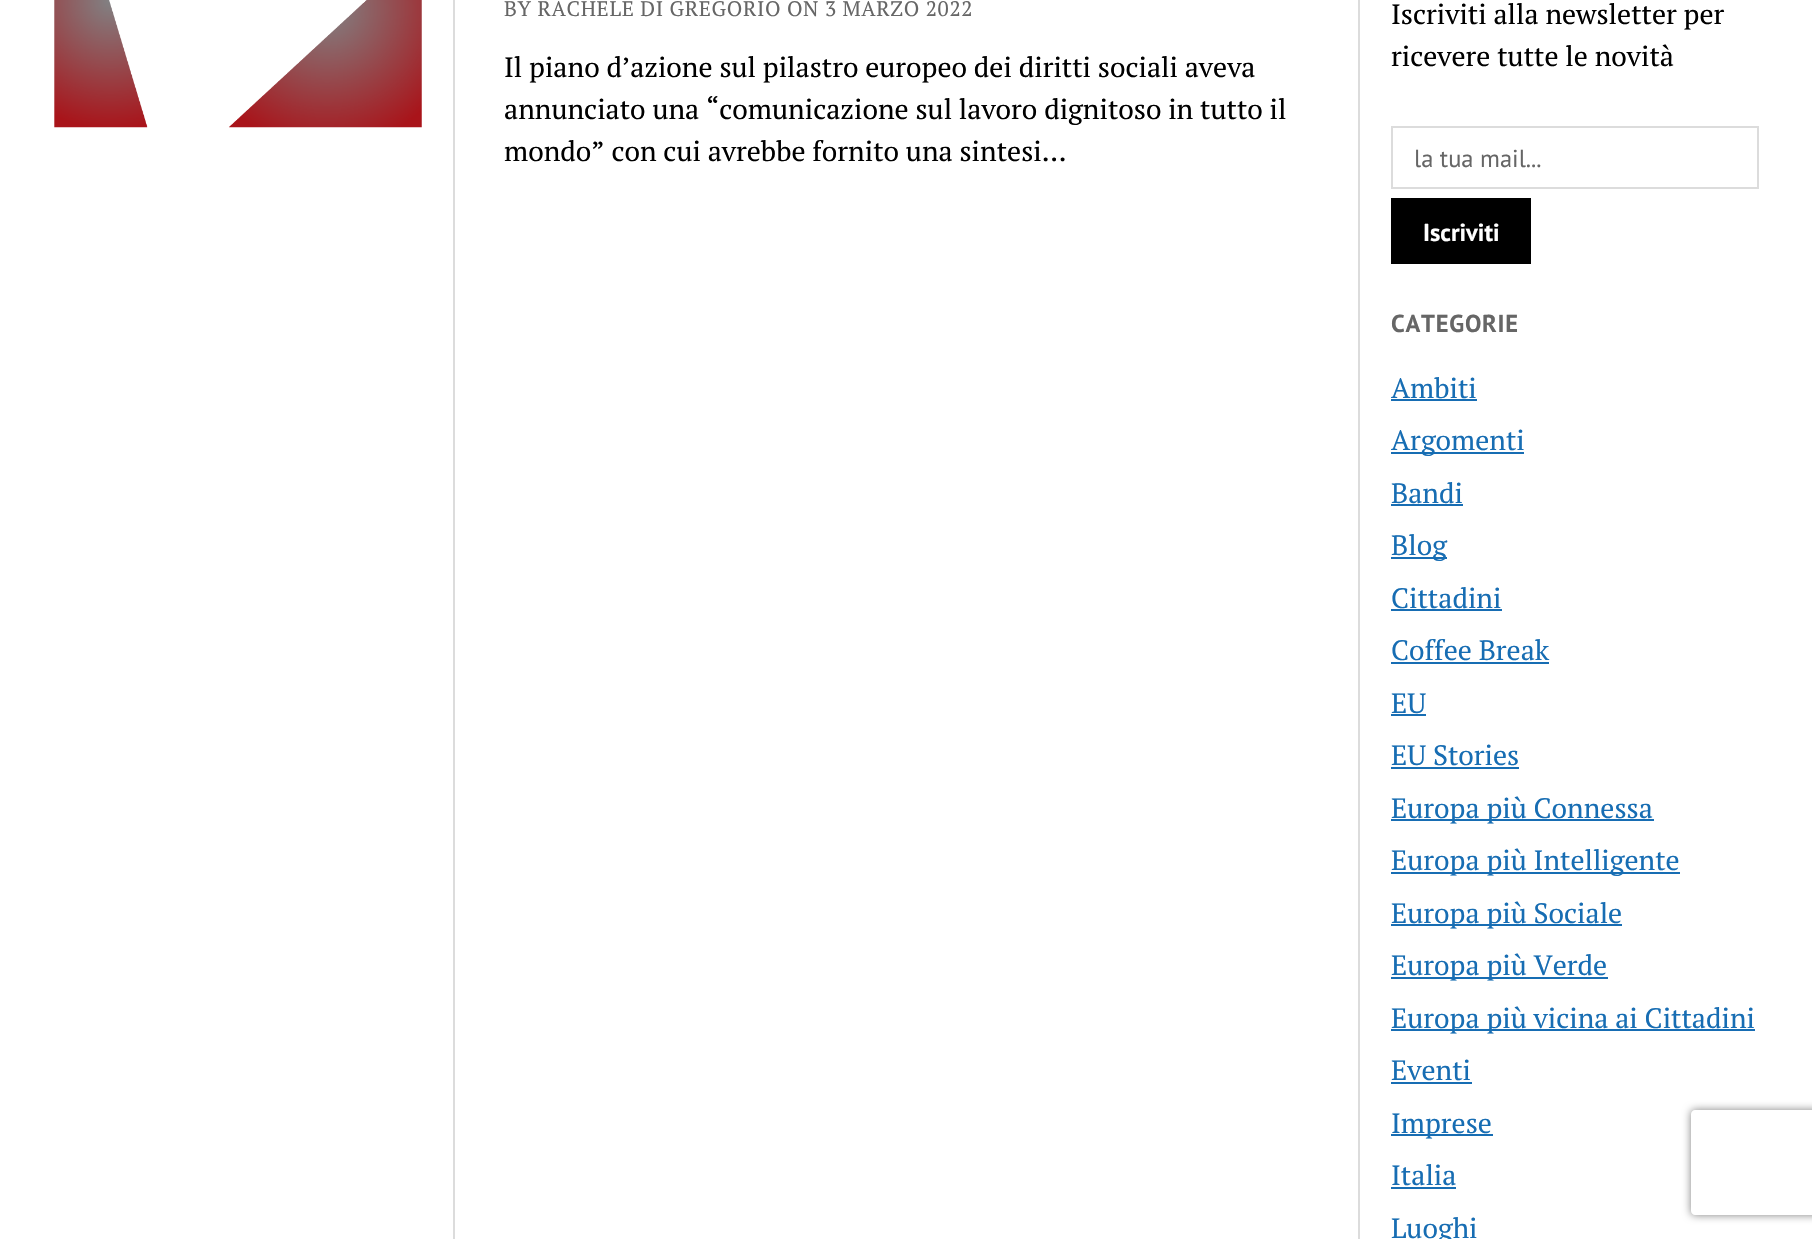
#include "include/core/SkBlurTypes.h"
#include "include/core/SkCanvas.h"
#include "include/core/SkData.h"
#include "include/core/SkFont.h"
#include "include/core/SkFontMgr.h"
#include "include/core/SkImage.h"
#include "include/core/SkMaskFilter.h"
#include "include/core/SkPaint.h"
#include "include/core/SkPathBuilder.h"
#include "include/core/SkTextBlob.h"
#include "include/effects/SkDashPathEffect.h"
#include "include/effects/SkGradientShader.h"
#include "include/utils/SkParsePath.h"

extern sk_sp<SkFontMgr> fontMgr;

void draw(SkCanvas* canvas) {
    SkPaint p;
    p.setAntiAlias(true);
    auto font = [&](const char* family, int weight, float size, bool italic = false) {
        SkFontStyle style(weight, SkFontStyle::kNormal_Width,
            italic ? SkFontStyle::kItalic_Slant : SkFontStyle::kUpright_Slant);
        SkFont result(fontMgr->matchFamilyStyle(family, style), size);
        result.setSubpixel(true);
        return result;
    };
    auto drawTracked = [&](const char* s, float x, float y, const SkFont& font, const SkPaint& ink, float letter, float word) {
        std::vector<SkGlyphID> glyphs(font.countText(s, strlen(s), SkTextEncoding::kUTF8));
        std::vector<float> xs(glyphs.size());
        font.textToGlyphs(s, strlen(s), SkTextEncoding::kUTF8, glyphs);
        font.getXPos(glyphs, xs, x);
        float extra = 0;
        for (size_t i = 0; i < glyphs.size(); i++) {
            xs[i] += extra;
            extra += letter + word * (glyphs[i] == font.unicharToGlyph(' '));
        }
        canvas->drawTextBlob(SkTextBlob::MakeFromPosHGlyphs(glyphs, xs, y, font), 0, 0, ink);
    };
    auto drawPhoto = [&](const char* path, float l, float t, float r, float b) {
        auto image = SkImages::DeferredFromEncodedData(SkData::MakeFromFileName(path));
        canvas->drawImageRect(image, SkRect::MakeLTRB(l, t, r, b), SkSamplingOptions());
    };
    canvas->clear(0xFFFFFFFF);
    p.setColor(0xFFDCDCDC);
    canvas->drawRect(SkRect::MakeLTRB(453, 0, 455, 1239), p);
    canvas->drawRect(SkRect::MakeLTRB(1358, 0, 1360, 1239), p);
    drawPhoto("media/1.png", 54, 0, 422, 128);
    auto font1 = font("PT Serif", 400, 21);
    p.setColor(0xFF666666);
    drawTracked("BY RACHELE DI GREGORIO ON 3 MARZO 2022", 504, 16, font1, p, 0.65f, 0);
    auto font2 = font("PT Serif", 400, 28);
    p.setColor(0xFF000000);
    {
        const struct { const char* s; float x, y; } items[] = {
            {"Il piano d’azione sul pilastro europeo dei diritti sociali aveva", 504, 77},
            {"annunciato una “comunicazione sul lavoro dignitoso in tutto il", 504, 119},
            {"mondo” con cui avrebbe fornito una sintesi…", 504, 161},
            {"Iscriviti alla newsletter per", 1391, 24},
            {"ricevere tutte le novità", 1391, 66},
        };
        for (auto [s, x, y] : items) {
            canvas->drawString(s, x, y, font2, p);
        }
    }
    p.setStyle(SkPaint::kStroke_Style);
    p.setStrokeWidth(2);
    p.setColor(0xFFDCDCDC);
    canvas->drawRect(SkRect::MakeLTRB(1392, 127, 1758, 188), p);
    auto font3 = font("PT Sans", 400, 24.5f);
    p.setStyle(SkPaint::kFill_Style);
    p.setColor(0xFF666666);
    canvas->drawString("la tua mail...", 1414, 167, font3, p);
    p.setColor(0xFF000000);
    canvas->drawRect(SkRect::MakeLTRB(1391, 198, 1531, 264), p);
    auto font4 = font("PT Sans", 700, 24.5f);
    p.setColor(0xFFFFFFFF);
    canvas->drawString("Iscriviti", 1423, 241, font4, p);
    p.setColor(0xFF666666);
    drawTracked("CATEGORIE", 1391, 332, font4, p, 0.75f, 0);
    p.setColor(0xFF176DB3);
    canvas->drawString("Ambiti", 1391, 398, font2, p);
    canvas->drawRect(SkRect::MakeLTRB(1391, 399, 1477, 401), p);
    canvas->drawRect(SkRect::MakeLTRB(1391, 452, 1524, 454), p);
    canvas->drawString("Argomenti", 1391, 450, font2, p);
    canvas->drawString("Bandi", 1391, 503, font2, p);
    canvas->drawRect(SkRect::MakeLTRB(1391, 504, 1463, 506), p);
    canvas->drawRect(SkRect::MakeLTRB(1391, 557, 1447, 559), p);
    canvas->drawString("Blog", 1391, 555, font2, p);
    canvas->drawString("Cittadini", 1391, 608, font2, p);
    canvas->drawRect(SkRect::MakeLTRB(1391, 609, 1502, 611), p);
    canvas->drawString("Coffee Break", 1391, 660, font2, p);
    canvas->drawRect(SkRect::MakeLTRB(1391, 662, 1549, 664), p);
    canvas->drawString("EU", 1391, 713, font2, p);
    canvas->drawRect(SkRect::MakeLTRB(1391, 714, 1426, 716), p);
    canvas->drawString("EU Stories", 1391, 765, font2, p);
    canvas->drawRect(SkRect::MakeLTRB(1391, 767, 1519, 769), p);
    canvas->drawRect(SkRect::MakeLTRB(1391, 819, 1654, 821), p);
    canvas->drawString("Europa più Connessa", 1391, 818, font2, p);
    canvas->drawRect(SkRect::MakeLTRB(1391, 872, 1680, 874), p);
    canvas->drawString("Europa più Intelligente", 1391, 870, font2, p);
    canvas->drawRect(SkRect::MakeLTRB(1391, 924, 1622, 926), p);
    canvas->drawString("Europa più Sociale", 1391, 923, font2, p);
    canvas->drawRect(SkRect::MakeLTRB(1391, 977, 1608, 979), p);
    canvas->drawString("Europa più Verde", 1391, 975, font2, p);
    canvas->drawRect(SkRect::MakeLTRB(1391, 1029, 1755, 1031), p);
    canvas->drawString("Europa più vicina ai Cittadini", 1391, 1028, font2, p);
    canvas->drawString("Eventi", 1391, 1080, font2, p);
    canvas->drawRect(SkRect::MakeLTRB(1391, 1082, 1472, 1084), p);
    canvas->drawRect(SkRect::MakeLTRB(1391, 1134, 1493, 1136), p);
    canvas->drawString("Imprese", 1391, 1133, font2, p);
    canvas->drawString("Italia", 1391, 1185, font2, p);
    canvas->drawRect(SkRect::MakeLTRB(1391, 1187, 1456, 1189), p);
    canvas->drawString("Luoghi", 1391, 1238, font2, p);
    canvas->save();
    canvas->clipPath(SkPathBuilder(SkPathFillType::kEvenOdd).moveTo(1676, 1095).lineTo(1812, 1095).lineTo(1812, 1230).lineTo(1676, 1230).close().moveTo(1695, 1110).lineTo(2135, 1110).cubicTo(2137, 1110, 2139, 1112, 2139, 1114).lineTo(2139, 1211).cubicTo(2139, 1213, 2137, 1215, 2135, 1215).lineTo(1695, 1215).cubicTo(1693, 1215, 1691, 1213, 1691, 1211).lineTo(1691, 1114).cubicTo(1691, 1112, 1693, 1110, 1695, 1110).close().detach(), true);
    p.setColor(0xFF808080);
    p.setMaskFilter(SkMaskFilter::MakeBlur(kNormal_SkBlurStyle, 4.5f));
    canvas->drawRoundRect(SkRect::MakeLTRB(1691, 1110, 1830, 1215), 4, 4, p);
    p.setMaskFilter(nullptr);
    canvas->restore();
}
